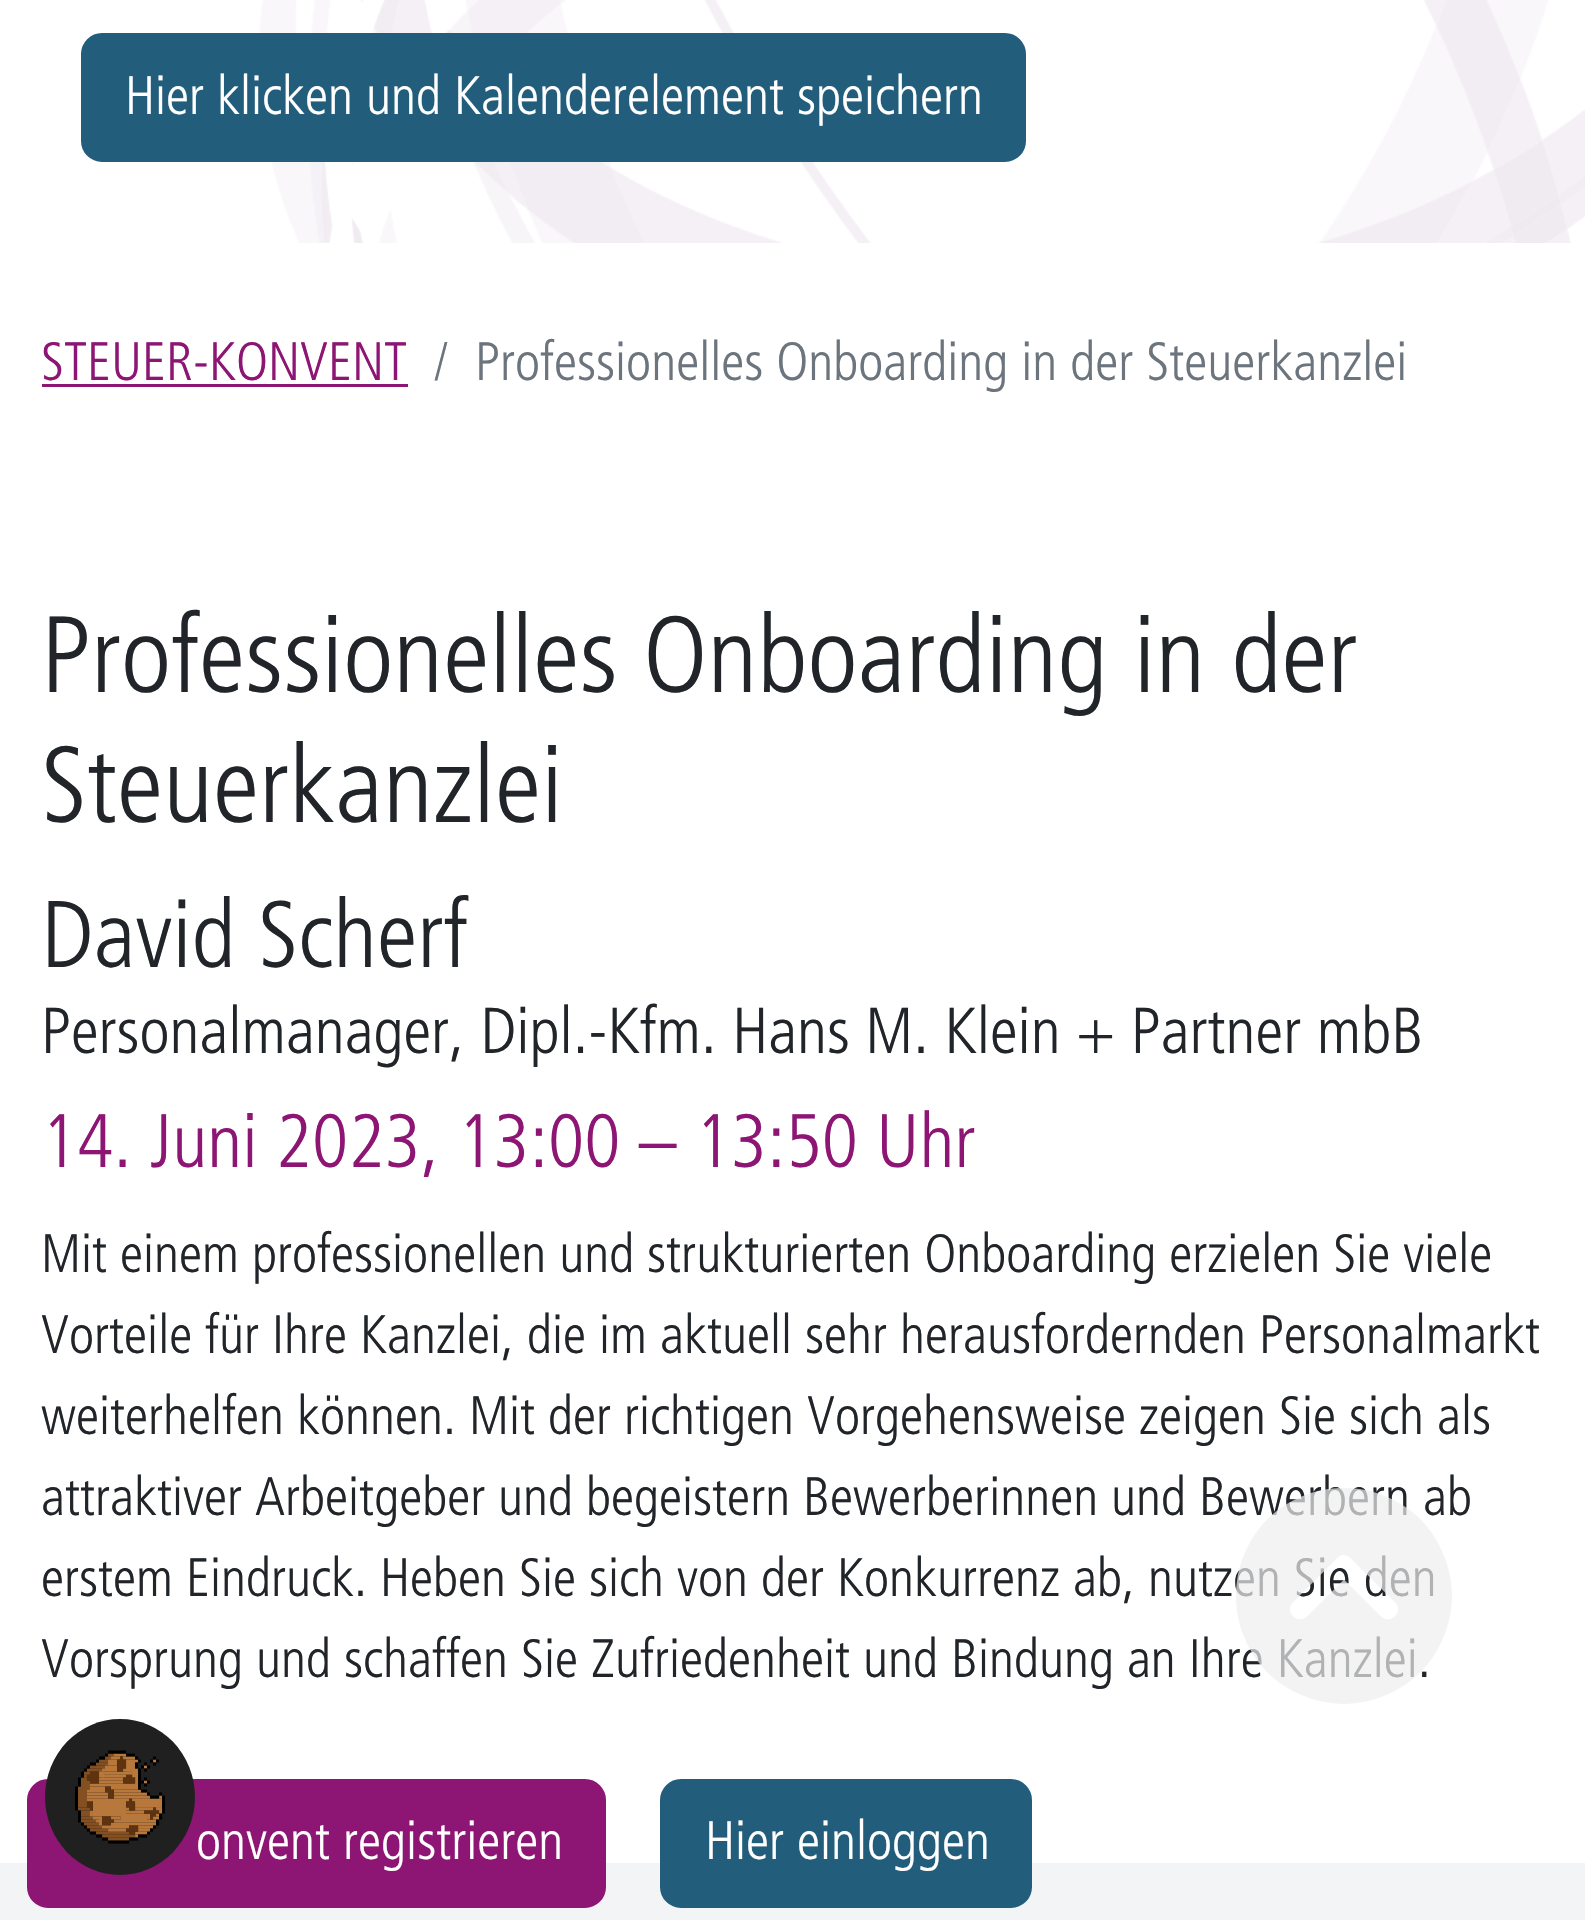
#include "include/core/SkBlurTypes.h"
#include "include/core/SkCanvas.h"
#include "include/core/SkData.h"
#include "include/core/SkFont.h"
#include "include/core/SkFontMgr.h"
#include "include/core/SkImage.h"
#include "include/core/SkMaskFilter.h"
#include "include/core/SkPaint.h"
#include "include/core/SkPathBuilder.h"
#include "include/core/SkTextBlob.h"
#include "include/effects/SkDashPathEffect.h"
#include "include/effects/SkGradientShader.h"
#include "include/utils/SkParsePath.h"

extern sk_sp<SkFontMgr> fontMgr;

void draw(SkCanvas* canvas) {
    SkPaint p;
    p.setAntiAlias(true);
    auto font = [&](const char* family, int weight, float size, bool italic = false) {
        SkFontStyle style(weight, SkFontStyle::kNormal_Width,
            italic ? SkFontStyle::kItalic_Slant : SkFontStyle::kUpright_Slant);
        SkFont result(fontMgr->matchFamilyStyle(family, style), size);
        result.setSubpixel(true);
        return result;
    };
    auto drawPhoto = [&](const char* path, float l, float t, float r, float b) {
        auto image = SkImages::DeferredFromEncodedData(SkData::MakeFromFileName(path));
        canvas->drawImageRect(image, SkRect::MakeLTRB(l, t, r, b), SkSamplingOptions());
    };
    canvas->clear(0xFFFFFFFF);
    drawPhoto("media/1.png", 259, 0, 1585, 243);
    p.setColor(0xFF235D7C);
    canvas->drawRoundRect(SkRect::MakeLTRB(82.5f, 34.5f, 1024.5f, 160.5f), 19.5f, 19.5f, p);
    p.setStyle(SkPaint::kStroke_Style);
    p.setStrokeWidth(3);
    canvas->drawRoundRect(SkRect::MakeLTRB(82.5f, 34.5f, 1024.5f, 160.5f), 19.5f, 19.5f, p);
    auto font1 = font("Frutiger", 300, 54);
    p.setStyle(SkPaint::kFill_Style);
    p.setColor(0xFFFFFFFF);
    canvas->drawString("Hier klicken und Kalenderelement speichern", 125, 114, font1, p);
    p.setColor(0xFF8D1573);
    canvas->drawString("STEUER-KONVENT", 41, 380, font1, p);
    canvas->drawRect(SkRect::MakeLTRB(42, 384, 408, 387), p);
    p.setColor(0xFF6C757D);
    canvas->drawString("/", 434, 380, font1, p);
    canvas->drawString("Professionelles Onboarding in der Steuerkanzlei", 475, 380, font1, p);
    auto font2 = font("Frutiger", 300, 108);
    p.setColor(0xFF212529);
    canvas->drawString("Professionelles Onboarding in der", 41, 692, font2, p);
    canvas->drawString("Steuerkanzlei", 41, 822, font2, p);
    auto font3 = font("Frutiger", 300, 94.5f);
    canvas->drawString("David Scherf", 41, 967, font3, p);
    auto font4 = font("Frutiger", 300, 64.8f);
    canvas->drawString("Personalmanager, Dipl.-Kfm. Hans M. Klein + Partner mbB", 41, 1053, font4, p);
    auto font5 = font("Frutiger", 300, 75.6f);
    p.setColor(0xFF8D1573);
    canvas->drawString("14. Juni 2023, 13:00 – 13:50 Uhr", 41, 1167, font5, p);
    p.setColor(0xFF212529);
    {
        const struct { const char* s; float x, y; } items[] = {
            {"Mit einem professionellen und strukturierten Onboarding erzielen Sie viele", 41, 1272},
            {"Vorteile für Ihre Kanzlei, die im aktuell sehr herausfordernden Personalmarkt", 41, 1353},
            {"weiterhelfen können. Mit der richtigen Vorgehensweise zeigen Sie sich als", 41, 1434},
            {"attraktiver Arbeitgeber und begeistern Bewerberinnen und Bewerbern ab", 41, 1515},
            {"erstem Eindruck. Heben Sie sich von der Konkurrenz ab, nutzen Sie den", 41, 1596},
            {"Vorsprung und schaffen Sie Zufriedenheit und Bindung an Ihre Kanzlei.", 41, 1677},
        };
        for (auto [s, x, y] : items) {
            canvas->drawString(s, x, y, font1, p);
        }
    }
    p.setColor(0xFFF3F4F6);
    canvas->drawRect(SkRect::MakeLTRB(0, 1863, 1585, 1920), p);
    p.setColor(0xFF8D1573);
    canvas->drawRoundRect(SkRect::MakeLTRB(28.5f, 1780.5f, 604.5f, 1906.5f), 19.5f, 19.5f, p);
    p.setStyle(SkPaint::kStroke_Style);
    canvas->drawRoundRect(SkRect::MakeLTRB(28.5f, 1780.5f, 604.5f, 1906.5f), 19.5f, 19.5f, p);
    p.setStyle(SkPaint::kFill_Style);
    p.setColor(0xFFFFFFFF);
    canvas->drawString("onvent registrieren", 196, 1859, font1, p);
    p.setColor(0xFF235D7C);
    canvas->drawRoundRect(SkRect::MakeLTRB(661.5f, 1780.5f, 1030.5f, 1906.5f), 19.5f, 19.5f, p);
    p.setStyle(SkPaint::kStroke_Style);
    canvas->drawRoundRect(SkRect::MakeLTRB(661.5f, 1780.5f, 1030.5f, 1906.5f), 19.5f, 19.5f, p);
    p.setStyle(SkPaint::kFill_Style);
    p.setColor(0xFFFFFFFF);
    canvas->drawString("Hier einloggen", 705, 1859, font1, p);
    drawPhoto("media/2.png", 1236, 1488, 1452, 1704);
    p.setColor(0xFF202020);
    canvas->drawOval(SkRect::MakeLTRB(45, 1719, 195, 1875), p);
    drawPhoto("media/3.png", 75, 1750, 165, 1844);
}
